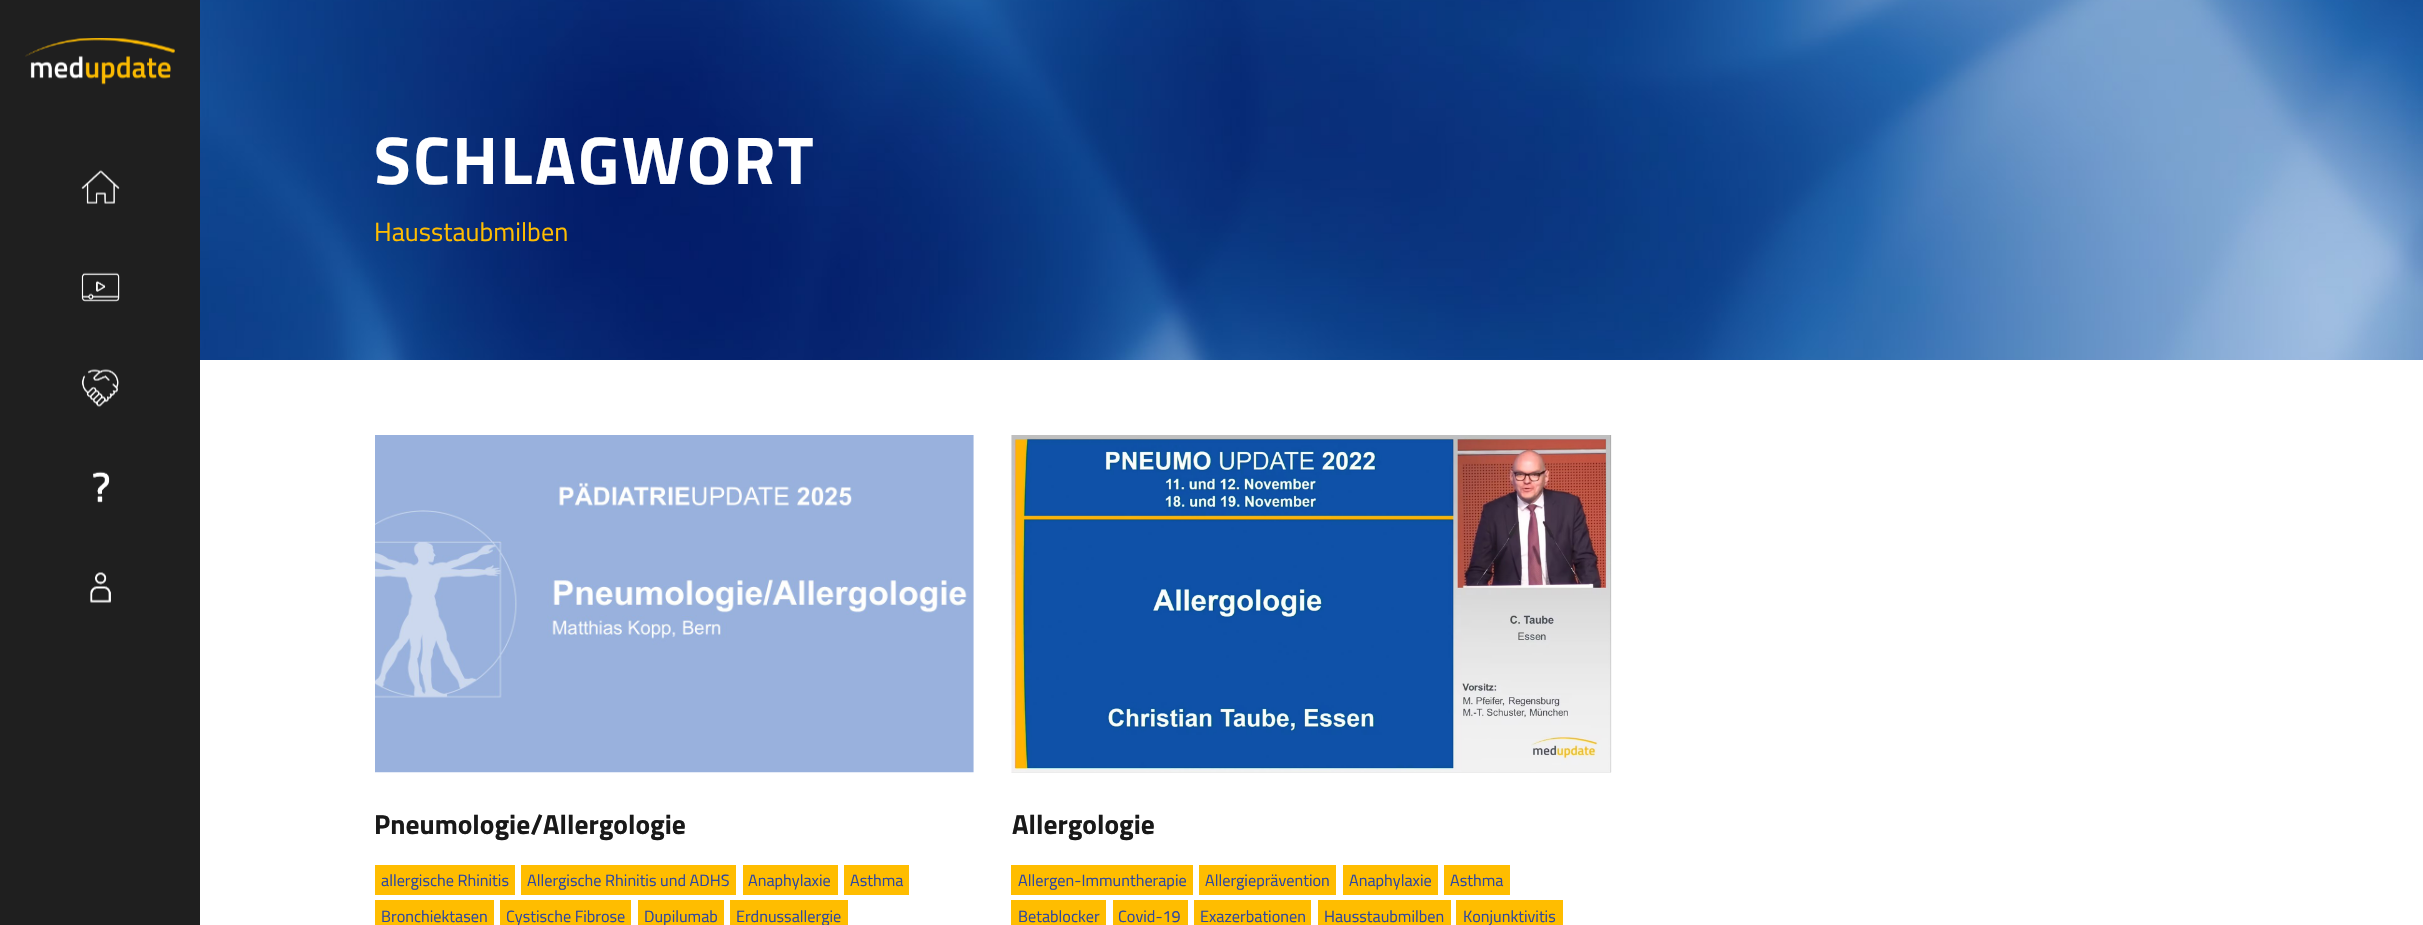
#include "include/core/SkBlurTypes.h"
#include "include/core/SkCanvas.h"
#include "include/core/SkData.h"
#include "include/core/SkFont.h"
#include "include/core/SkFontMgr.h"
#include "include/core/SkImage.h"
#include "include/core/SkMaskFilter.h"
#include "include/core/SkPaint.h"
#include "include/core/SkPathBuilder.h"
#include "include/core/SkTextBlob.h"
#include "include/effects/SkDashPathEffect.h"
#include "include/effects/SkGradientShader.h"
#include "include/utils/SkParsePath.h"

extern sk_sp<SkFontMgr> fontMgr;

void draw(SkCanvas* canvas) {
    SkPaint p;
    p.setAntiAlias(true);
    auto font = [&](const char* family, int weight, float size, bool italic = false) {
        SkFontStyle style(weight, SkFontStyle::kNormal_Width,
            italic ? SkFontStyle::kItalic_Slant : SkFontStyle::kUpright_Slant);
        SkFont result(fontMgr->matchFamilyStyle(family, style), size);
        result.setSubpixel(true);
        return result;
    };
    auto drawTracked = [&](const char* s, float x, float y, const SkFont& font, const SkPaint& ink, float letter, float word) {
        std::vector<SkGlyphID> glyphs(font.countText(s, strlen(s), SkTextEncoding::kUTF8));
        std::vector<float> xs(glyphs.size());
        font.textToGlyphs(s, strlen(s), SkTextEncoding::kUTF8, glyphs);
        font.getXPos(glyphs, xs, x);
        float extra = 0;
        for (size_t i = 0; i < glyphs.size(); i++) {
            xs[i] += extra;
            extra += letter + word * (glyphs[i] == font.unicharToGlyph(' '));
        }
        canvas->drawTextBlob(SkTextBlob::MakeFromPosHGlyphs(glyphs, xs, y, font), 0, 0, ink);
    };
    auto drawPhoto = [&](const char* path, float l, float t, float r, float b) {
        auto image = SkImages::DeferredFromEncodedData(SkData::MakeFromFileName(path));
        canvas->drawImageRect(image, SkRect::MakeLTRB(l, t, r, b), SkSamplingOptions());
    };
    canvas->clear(0xFFFFFFFF);
    p.setColor(0xFF1F1F1F);
    canvas->drawRect(SkRect::MakeLTRB(0, 0, 200, 925), p);
    drawPhoto("media/1.png", 25, 38, 175, 85);
    drawPhoto("media/2.png", 81, 170, 120, 204);
    drawPhoto("media/3.png", 81, 272, 120, 302);
    drawPhoto("media/4.png", 81, 369, 119, 407);
    drawPhoto("media/5.png", 93, 471, 110, 503);
    drawPhoto("media/6.png", 90, 572, 111, 603);
    drawPhoto("media/7.png", 200, 0, 2423, 360);
    auto font1 = font("Titillium Web", 700, 67.5f);
    p.setColor(0xFFFFFFFF);
    drawTracked("SCHLAGWORT", 374, 184, font1, p, 2.5f, 0);
    auto font2 = font("Titillium Web", 400, 26.25f);
    p.setColor(0xFFFFBD00);
    canvas->drawString("Hausstaubmilben", 374, 241, font2, p);
    drawPhoto("media/8.png", 375, 435, 974, 773);
    auto font3 = font("Titillium Web", 700, 27.5f);
    p.setColor(0xFF191919);
    canvas->drawString("Pneumologie/Allergologie", 374, 834, font3, p);
    p.setColor(0xFFFFBD00);
    canvas->drawRect(SkRect::MakeLTRB(375, 865, 515, 895), p);
    auto font4 = font("Titillium Web", 400, 16.25f);
    p.setColor(0xFF2D47A1);
    canvas->drawString("allergische Rhinitis", 381, 886, font4, p);
    p.setColor(0xFFFFBD00);
    canvas->drawRect(SkRect::MakeLTRB(521, 865, 736, 895), p);
    p.setColor(0xFF2D47A1);
    canvas->drawString("Allergische Rhinitis und ADHS", 527, 886, font4, p);
    p.setColor(0xFFFFBD00);
    canvas->drawRect(SkRect::MakeLTRB(743, 865, 838, 895), p);
    p.setColor(0xFF2D47A1);
    canvas->drawString("Anaphylaxie", 748, 886, font4, p);
    p.setColor(0xFFFFBD00);
    canvas->drawRect(SkRect::MakeLTRB(844, 865, 909, 895), p);
    p.setColor(0xFF2D47A1);
    canvas->drawString("Asthma", 850, 886, font4, p);
    p.setColor(0xFFFFBD00);
    canvas->drawRect(SkRect::MakeLTRB(375, 900, 494, 925), p);
    p.setColor(0xFF2D47A1);
    canvas->drawString("Bronchiektasen", 381, 922, font4, p);
    p.setColor(0xFFFFBD00);
    canvas->drawRect(SkRect::MakeLTRB(500, 900, 631, 925), p);
    p.setColor(0xFF2D47A1);
    canvas->drawString("Cystische Fibrose", 506, 922, font4, p);
    p.setColor(0xFFFFBD00);
    canvas->drawRect(SkRect::MakeLTRB(638, 900, 724, 925), p);
    p.setColor(0xFF2D47A1);
    canvas->drawString("Dupilumab", 644, 922, font4, p);
    p.setColor(0xFFFFBD00);
    canvas->drawRect(SkRect::MakeLTRB(730, 900, 848, 925), p);
    p.setColor(0xFF2D47A1);
    canvas->drawString("Erdnussallergie", 736, 922, font4, p);
    drawPhoto("media/9.png", 1011, 435, 1612, 773);
    p.setColor(0xFF191919);
    canvas->drawString("Allergologie", 1012, 834, font3, p);
    p.setColor(0xFFFFBD00);
    canvas->drawRect(SkRect::MakeLTRB(1011, 865, 1193, 895), p);
    p.setColor(0xFF2D47A1);
    canvas->drawString("Allergen-Immuntherapie", 1018, 886, font4, p);
    p.setColor(0xFFFFBD00);
    canvas->drawRect(SkRect::MakeLTRB(1199, 865, 1336, 895), p);
    p.setColor(0xFF2D47A1);
    canvas->drawString("Allergieprävention", 1205, 886, font4, p);
    p.setColor(0xFFFFBD00);
    canvas->drawRect(SkRect::MakeLTRB(1343, 865, 1438, 895), p);
    p.setColor(0xFF2D47A1);
    canvas->drawString("Anaphylaxie", 1349, 886, font4, p);
    p.setColor(0xFFFFBD00);
    canvas->drawRect(SkRect::MakeLTRB(1444, 865, 1510, 895), p);
    p.setColor(0xFF2D47A1);
    canvas->drawString("Asthma", 1450, 886, font4, p);
    p.setColor(0xFFFFBD00);
    canvas->drawRect(SkRect::MakeLTRB(1011, 900, 1106, 925), p);
    p.setColor(0xFF2D47A1);
    canvas->drawString("Betablocker", 1018, 922, font4, p);
    p.setColor(0xFFFFBD00);
    canvas->drawRect(SkRect::MakeLTRB(1113, 900, 1188, 925), p);
    p.setColor(0xFF2D47A1);
    canvas->drawString("Covid-19", 1118, 922, font4, p);
    p.setColor(0xFFFFBD00);
    canvas->drawRect(SkRect::MakeLTRB(1194, 900, 1311, 925), p);
    p.setColor(0xFF2D47A1);
    canvas->drawString("Exazerbationen", 1200, 922, font4, p);
    p.setColor(0xFFFFBD00);
    canvas->drawRect(SkRect::MakeLTRB(1318, 900, 1451, 925), p);
    p.setColor(0xFF2D47A1);
    canvas->drawString("Hausstaubmilben", 1324, 922, font4, p);
    p.setColor(0xFFFFBD00);
    canvas->drawRect(SkRect::MakeLTRB(1456, 900, 1563, 925), p);
    p.setColor(0xFF2D47A1);
    canvas->drawString("Konjunktivitis", 1463, 922, font4, p);
}
